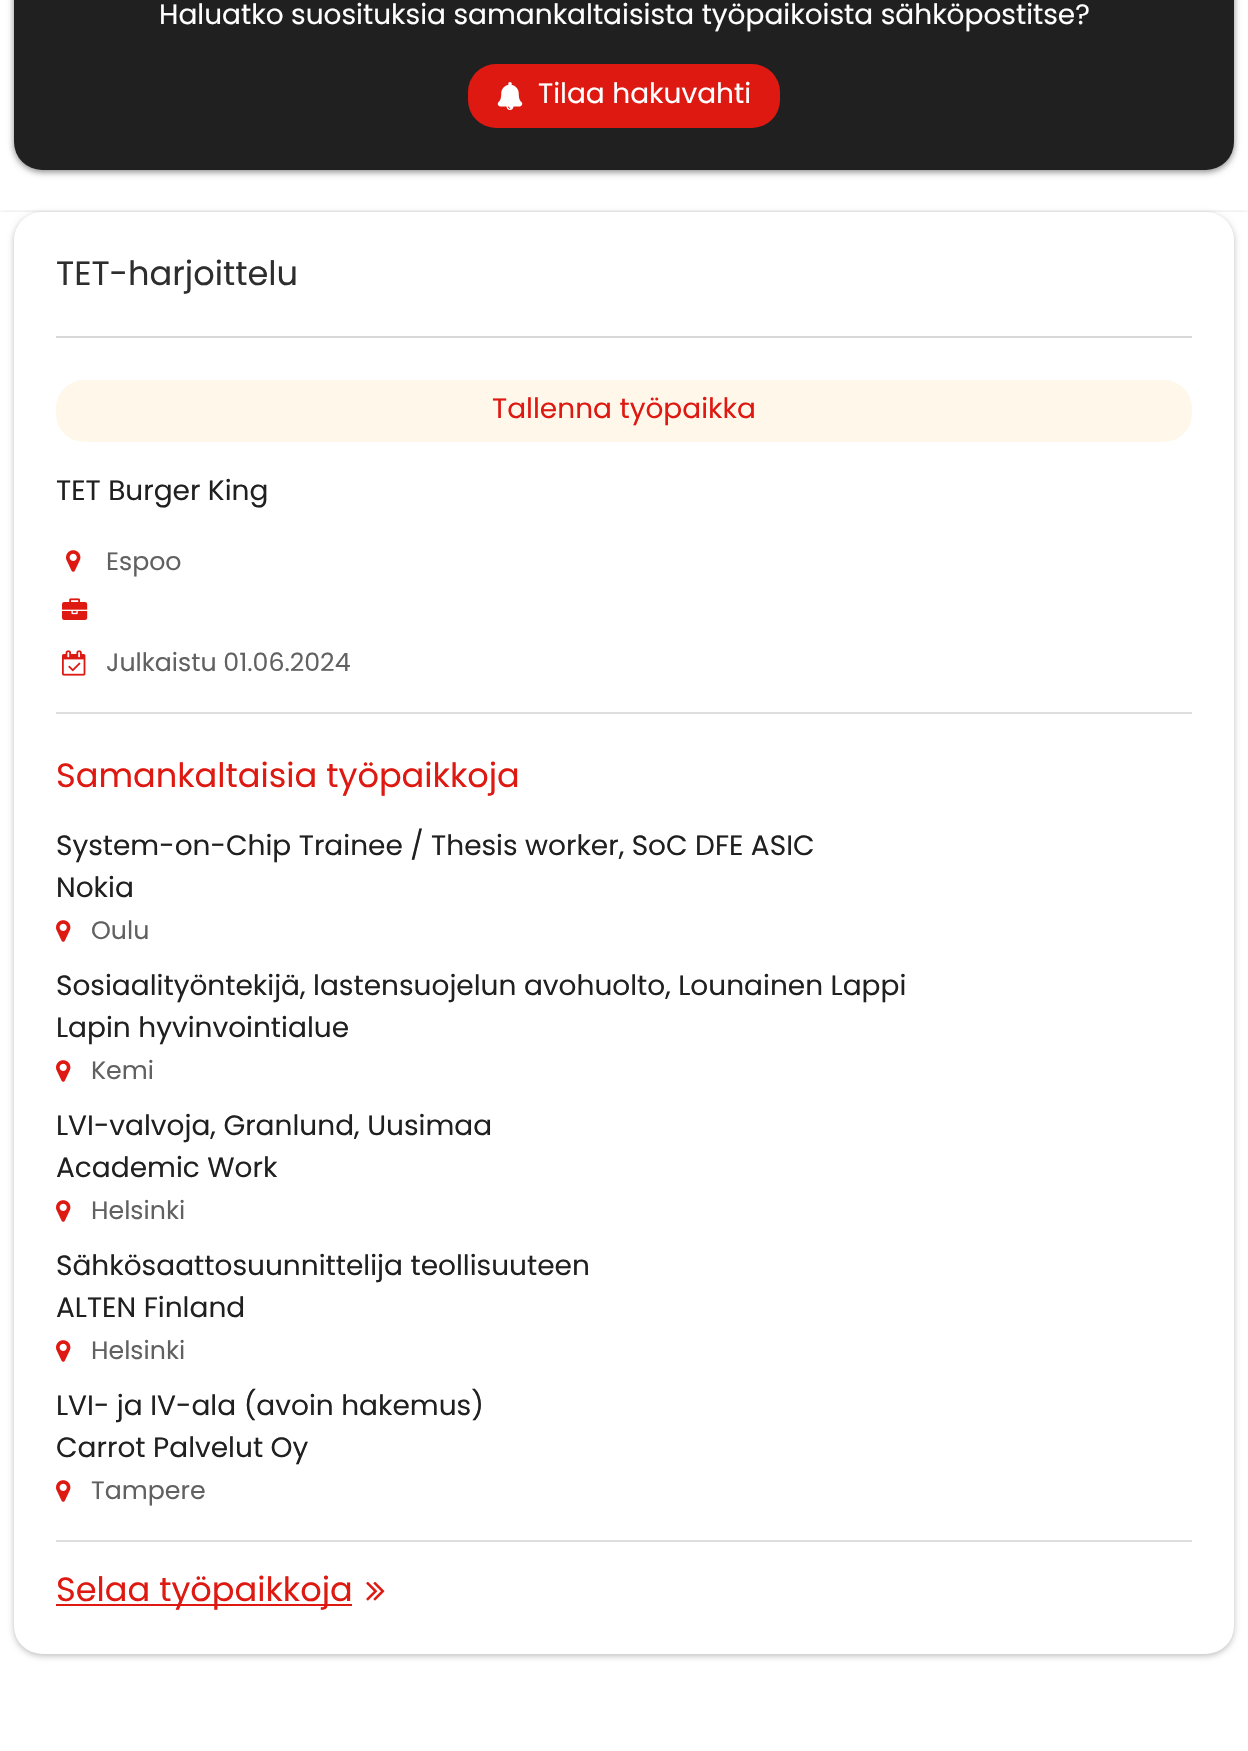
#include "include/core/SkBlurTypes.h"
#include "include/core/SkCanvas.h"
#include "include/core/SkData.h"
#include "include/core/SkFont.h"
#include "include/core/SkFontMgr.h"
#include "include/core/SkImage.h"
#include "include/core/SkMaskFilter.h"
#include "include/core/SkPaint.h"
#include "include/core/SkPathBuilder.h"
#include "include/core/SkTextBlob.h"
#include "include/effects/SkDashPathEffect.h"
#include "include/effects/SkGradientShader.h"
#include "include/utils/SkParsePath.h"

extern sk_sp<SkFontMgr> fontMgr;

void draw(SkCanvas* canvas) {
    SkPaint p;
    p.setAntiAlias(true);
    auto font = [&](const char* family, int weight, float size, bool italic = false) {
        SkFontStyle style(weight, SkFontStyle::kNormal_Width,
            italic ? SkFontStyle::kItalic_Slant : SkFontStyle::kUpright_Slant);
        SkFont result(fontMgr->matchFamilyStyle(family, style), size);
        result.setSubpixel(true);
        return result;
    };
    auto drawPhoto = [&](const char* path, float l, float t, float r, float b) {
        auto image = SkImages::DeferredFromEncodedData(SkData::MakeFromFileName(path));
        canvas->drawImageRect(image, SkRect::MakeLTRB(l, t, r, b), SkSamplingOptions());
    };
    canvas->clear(0xFFFFFFFF);
    p.setColor(0x40000000);
    p.setMaskFilter(SkMaskFilter::MakeBlur(kNormal_SkBlurStyle, 3));
    canvas->drawRoundRect(SkRect::MakeLTRB(14, -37, 1234, 172), 28, 28, p);
    p.setMaskFilter(nullptr);
    p.setMaskFilter(SkMaskFilter::MakeBlur(kNormal_SkBlurStyle, 3));
    canvas->drawRoundRect(SkRect::MakeLTRB(14, -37, 1234, 172), 28, 28, p);
    p.setMaskFilter(nullptr);
    p.setColor(0xFF202020);
    canvas->drawRoundRect(SkRect::MakeLTRB(14, -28, 1234, 170), 28, 28, p);
    auto font1 = font("Poppins", 400, 28);
    p.setColor(0xFFFFFFFF);
    canvas->drawString("Haluatko suosituksia samankaltaisista työpaikoista sähköpostitse?", 159, 24, font1, p);
    p.setColor(0xFFDE1912);
    canvas->drawRoundRect(SkRect::MakeLTRB(468, 64, 780, 128), 28, 28, p);
    drawPhoto("media/1.png", 497, 82, 523, 110);
    p.setColor(0xFFFFFFFF);
    canvas->drawString("Tilaa hakuvahti", 538, 103, font1, p);
    canvas->save();
    canvas->clipRect(SkRect::MakeLTRB(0, 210, 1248, 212));
    p.setColor(0x40000000);
    p.setMaskFilter(SkMaskFilter::MakeBlur(kNormal_SkBlurStyle, 3));
    canvas->drawRect(SkRect::MakeLTRB(0, 214, 1248, 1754), p);
    p.setMaskFilter(nullptr);
    canvas->restore();
    p.setMaskFilter(SkMaskFilter::MakeBlur(kNormal_SkBlurStyle, 3));
    canvas->drawRoundRect(SkRect::MakeLTRB(14, 214, 1234, 1656), 28, 28, p);
    p.setMaskFilter(nullptr);
    p.setColor(0xFFFFFFFF);
    canvas->drawRoundRect(SkRect::MakeLTRB(14, 212, 1234, 1654), 28, 28, p);
    p.setColor(0xFFD8D8D8);
    canvas->drawRect(SkRect::MakeLTRB(56, 336, 1192, 338), p);
    auto font2 = font("Poppins", 400, 33.6f);
    p.setColor(0xFF2E2E2E);
    canvas->drawString("TET-harjoittelu", 56, 285, font2, p);
    p.setColor(0xFFFFF7EA);
    canvas->drawRoundRect(SkRect::MakeLTRB(56, 380, 1192, 442), 28, 28, p);
    p.setColor(0xFFDE1912);
    canvas->drawString("Tallenna työpaikka", 492, 418, font1, p);
    p.setColor(0xFF202020);
    canvas->drawString("TET Burger King", 56, 500, font1, p);
    drawPhoto("media/2.png", 66, 550, 81, 572);
    auto font3 = font("Poppins", 400, 25.25f);
    p.setColor(0xFF616161);
    canvas->drawString("Espoo", 106, 570, font3, p);
    drawPhoto("media/3.png", 62, 598, 88, 620);
    drawPhoto("media/4.png", 62, 650, 86, 676);
    canvas->drawString("Julkaistu 01.06.2024", 106, 671, font3, p);
    p.setColor(0xFFDEDEDE);
    canvas->drawRect(SkRect::MakeLTRB(56, 712, 1192, 714), p);
    p.setColor(0xFFDE1912);
    canvas->drawString("Samankaltaisia työpaikkoja", 56, 787, font2, p);
    p.setColor(0xFF202020);
    canvas->drawString("System-on-Chip Trainee / Thesis worker, SoC DFE ASIC", 56, 855, font1, p);
    canvas->drawString("Nokia", 56, 897, font1, p);
    drawPhoto("media/2.png", 56, 920, 71, 942);
    p.setColor(0xFF616161);
    canvas->drawString("Oulu", 91, 939, font3, p);
    p.setColor(0xFF202020);
    canvas->drawString("Sosiaalityöntekijä, lastensuojelun avohuolto, Lounainen Lappi", 56, 995, font1, p);
    canvas->drawString("Lapin hyvinvointialue", 56, 1037, font1, p);
    drawPhoto("media/2.png", 56, 1060, 71, 1082);
    p.setColor(0xFF616161);
    canvas->drawString("Kemi", 91, 1079, font3, p);
    p.setColor(0xFF202020);
    canvas->drawString("LVI-valvoja, Granlund, Uusimaa", 56, 1135, font1, p);
    canvas->drawString("Academic Work", 56, 1177, font1, p);
    drawPhoto("media/2.png", 56, 1200, 71, 1222);
    p.setColor(0xFF616161);
    canvas->drawString("Helsinki", 91, 1219, font3, p);
    p.setColor(0xFF202020);
    canvas->drawString("Sähkösaattosuunnittelija teollisuuteen", 56, 1275, font1, p);
    canvas->drawString("ALTEN Finland", 56, 1317, font1, p);
    drawPhoto("media/2.png", 56, 1340, 71, 1362);
    p.setColor(0xFF616161);
    canvas->drawString("Helsinki", 91, 1359, font3, p);
    p.setColor(0xFF202020);
    canvas->drawString("LVI- ja IV-ala (avoin hakemus)", 56, 1415, font1, p);
    canvas->drawString("Carrot Palvelut Oy", 56, 1457, font1, p);
    drawPhoto("media/2.png", 56, 1480, 71, 1502);
    p.setColor(0xFF616161);
    canvas->drawString("Tampere", 91, 1499, font3, p);
    p.setColor(0xFFDEDEDE);
    canvas->drawRect(SkRect::MakeLTRB(56, 1540, 1192, 1542), p);
    p.setColor(0xFFDE1912);
    canvas->drawRect(SkRect::MakeLTRB(56, 1604, 352, 1606), p);
    canvas->drawString("Selaa työpaikkoja", 56, 1601, font2, p);
    drawPhoto("media/5.png", 366, 1581, 385, 1601);
}
